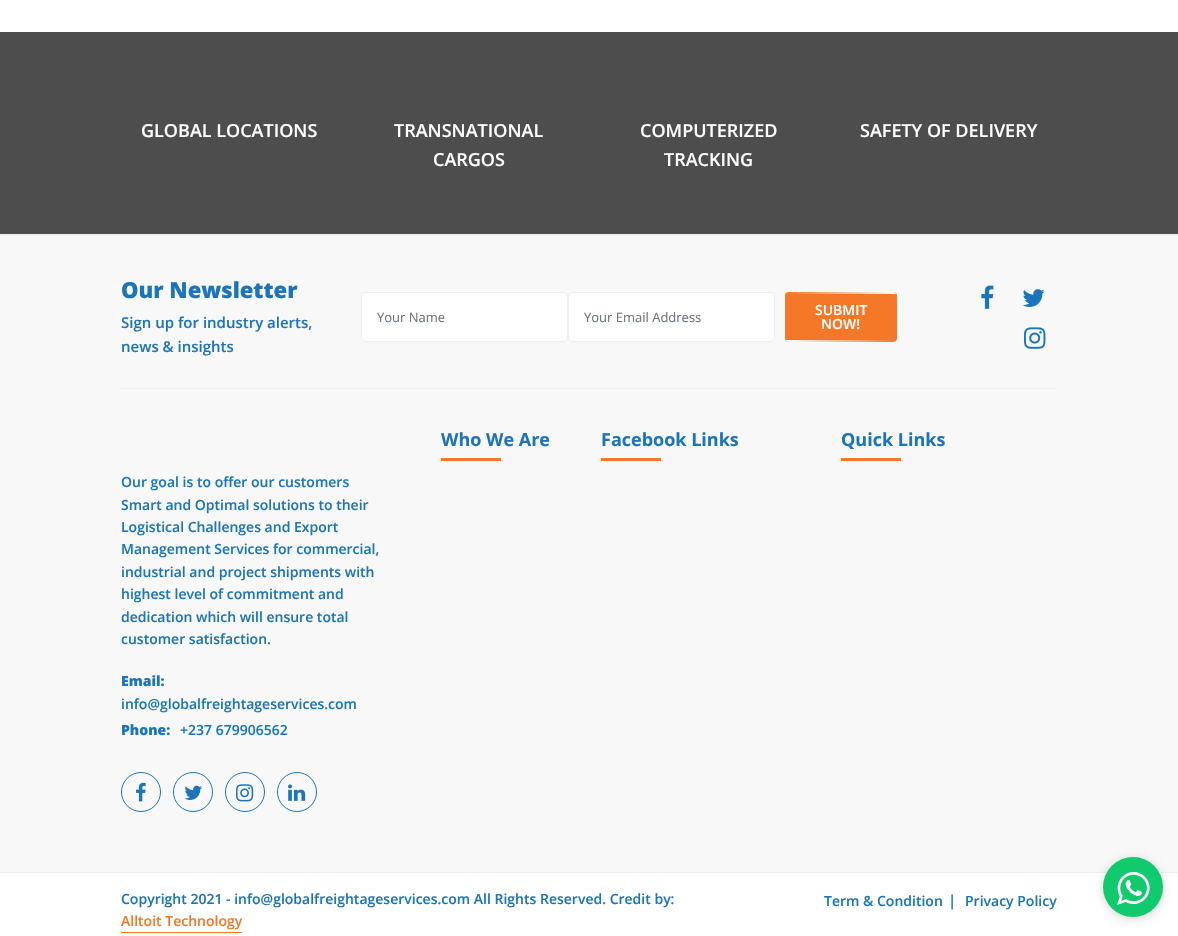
#include "include/core/SkBlurTypes.h"
#include "include/core/SkCanvas.h"
#include "include/core/SkData.h"
#include "include/core/SkFont.h"
#include "include/core/SkFontMgr.h"
#include "include/core/SkImage.h"
#include "include/core/SkMaskFilter.h"
#include "include/core/SkPaint.h"
#include "include/core/SkPathBuilder.h"
#include "include/core/SkTextBlob.h"
#include "include/effects/SkDashPathEffect.h"
#include "include/effects/SkGradientShader.h"
#include "include/utils/SkParsePath.h"

extern sk_sp<SkFontMgr> fontMgr;

void draw(SkCanvas* canvas) {
    SkPaint p;
    p.setAntiAlias(true);
    auto font = [&](const char* family, int weight, float size, bool italic = false) {
        SkFontStyle style(weight, SkFontStyle::kNormal_Width,
            italic ? SkFontStyle::kItalic_Slant : SkFontStyle::kUpright_Slant);
        SkFont result(fontMgr->matchFamilyStyle(family, style), size);
        result.setSubpixel(true);
        return result;
    };
    auto drawPhoto = [&](const char* path, float l, float t, float r, float b) {
        auto image = SkImages::DeferredFromEncodedData(SkData::MakeFromFileName(path));
        canvas->drawImageRect(image, SkRect::MakeLTRB(l, t, r, b), SkSamplingOptions());
    };
    canvas->clear(0xFFFFFFFF);
    p.setColor(0xFF4D4D4D);
    canvas->drawRect(SkRect::MakeLTRB(0, 32, 1178, 234), p);
    auto font1 = font("Open Sans", 600, 18);
    p.setColor(0xFFFFFFFF);
    {
        const struct { const char* s; float x, y; } items[] = {
            {"GLOBAL LOCATIONS", 141, 137},
            {"TRANSNATIONAL", 394, 137},
            {"CARGOS", 433, 166},
            {"COMPUTERIZED", 640, 137},
            {"TRACKING", 664, 166},
            {"SAFETY OF DELIVERY", 860, 137},
        };
        for (auto [s, x, y] : items) {
            canvas->drawString(s, x, y, font1, p);
        }
    }
    {
        const struct { float l, t, r, b; SkColor color; } items[] = {
            {0, 236, 1178, 872, 0xFFF8F8F8},
            {0, 234, 1178, 236, 0xFFEEEEEE},
            {121, 388, 1057, 389, 0xFFEEEEEE},
        };
        for (auto [l, t, r, b, color] : items) {
            p.setColor(color);
            canvas->drawRect(SkRect::MakeLTRB(l, t, r, b), p);
        }
    }
    auto font2 = font("Open Sans", 800, 22);
    p.setColor(0xFF1C75BC);
    canvas->drawString("Our Newsletter", 121, 298, font2, p);
    auto font3 = font("Open Sans", 600, 15);
    canvas->drawString("Sign up for industry alerts,", 121, 328, font3, p);
    canvas->drawString("news & insights", 121, 352, font3, p);
    p.setColor(0xFFFFFFFF);
    canvas->drawRoundRect(SkRect::MakeLTRB(361.5f, 292.5f, 567.5f, 341.5f), 4.5f, 4.5f, p);
    p.setStyle(SkPaint::kStroke_Style);
    p.setStrokeWidth(1);
    p.setColor(0xFFEEEEEE);
    canvas->drawRoundRect(SkRect::MakeLTRB(361.5f, 292.5f, 567.5f, 341.5f), 4.5f, 4.5f, p);
    auto font4 = font("Open Sans", 400, 13);
    p.setStyle(SkPaint::kFill_Style);
    p.setColor(0xFF6C757D);
    canvas->drawString("Your Name", 377, 322, font4, p);
    p.setColor(0xFFFFFFFF);
    canvas->drawRoundRect(SkRect::MakeLTRB(568.5f, 292.5f, 774.5f, 341.5f), 4.5f, 4.5f, p);
    p.setStyle(SkPaint::kStroke_Style);
    p.setColor(0xFFEEEEEE);
    canvas->drawRoundRect(SkRect::MakeLTRB(568.5f, 292.5f, 774.5f, 341.5f), 4.5f, 4.5f, p);
    p.setStyle(SkPaint::kFill_Style);
    p.setColor(0xFF6C757D);
    canvas->drawString("Your Email Address", 584, 322, font4, p);
    p.setColor(0xFFF47827);
    canvas->drawRoundRect(SkRect::MakeLTRB(785, 292, 897, 342), 4, 4, p);
    canvas->save();
    canvas->clipPath(SkPathBuilder().moveTo(789, 292).lineTo(893, 292).cubicTo(895, 292, 897, 294, 897, 296).lineTo(897, 338).cubicTo(897, 340, 895, 342, 893, 342).lineTo(789, 342).cubicTo(787, 342, 785, 340, 785, 338).lineTo(785, 296).cubicTo(785, 294, 787, 292, 789, 292).close().detach(), true);
    {
        const SkColor colors[] = {0xFFFFFFFF, 0x00FFFFFF};
        const float stops[] = {0, 1};
        const SkPoint ends[] = {{897, 292}, {785, 292}};
        p.setShader(SkGradientShader::MakeLinear(ends, colors, stops, 2, SkTileMode::kClamp));
        p.setAlpha(255);
    }
    canvas->drawRect(SkRect::MakeLTRB(785, 292, 897, 294), p);
    canvas->restore();
    auto font5 = font("Open Sans", 600, 14);
    p.setShader(nullptr);
    p.setColor(0xFFFFFFFF);
    canvas->drawString("SUBMIT", 815, 315, font5, p);
    canvas->drawString("NOW!", 821, 329, font5, p);
    canvas->save();
    canvas->clipPath(SkPathBuilder().moveTo(789, 292).lineTo(893, 292).cubicTo(895, 292, 897, 294, 897, 296).lineTo(897, 338).cubicTo(897, 340, 895, 342, 893, 342).lineTo(789, 342).cubicTo(787, 342, 785, 340, 785, 338).lineTo(785, 296).cubicTo(785, 294, 787, 292, 789, 292).close().detach(), true);
    {
        const SkColor colors[] = {0xFFFFFFFF, 0x00FFFFFF};
        const float stops[] = {0, 1};
        const SkPoint ends[] = {{785, 340}, {897, 340}};
        p.setShader(SkGradientShader::MakeLinear(ends, colors, stops, 2, SkTileMode::kClamp));
        p.setAlpha(255);
    }
    canvas->drawRect(SkRect::MakeLTRB(785, 340, 897, 342), p);
    canvas->restore();
    drawPhoto("media/1.png", 981, 285, 994, 309);
    drawPhoto("media/2.png", 1022, 289, 1045, 307);
    drawPhoto("media/3.png", 1024, 327, 1046, 349);
    auto font6 = font("Open Sans", 700, 18);
    p.setShader(nullptr);
    p.setColor(0xFF1C75BC);
    canvas->drawString("Who We Are", 441, 446, font6, p);
    p.setColor(0xFFF47827);
    canvas->drawRect(SkRect::MakeLTRB(441, 458, 501, 461), p);
    p.setColor(0xFF1C75BC);
    canvas->drawString("Facebook Links", 601, 446, font6, p);
    p.setColor(0xFFF47827);
    canvas->drawRect(SkRect::MakeLTRB(601, 458, 661, 461), p);
    p.setColor(0xFF1C75BC);
    canvas->drawString("Quick Links", 841, 446, font6, p);
    p.setColor(0xFFF47827);
    canvas->drawRect(SkRect::MakeLTRB(841, 458, 901, 461), p);
    p.setColor(0xFF1C75BC);
    {
        const struct { const char* s; float x, y; } items[] = {
            {"Our goal is to offer our customers", 121, 487},
            {"Smart and Optimal solutions to their", 121, 510},
            {"Logistical Challenges and Export", 121, 532},
            {"Management Services for commercial,", 121, 554},
            {"industrial and project shipments with", 121, 577},
            {"highest level of commitment and", 121, 599},
            {"dedication which will ensure total", 121, 622},
            {"customer satisfaction.", 121, 644},
        };
        for (auto [s, x, y] : items) {
            canvas->drawString(s, x, y, font5, p);
        }
    }
    auto font7 = font("Open Sans", 800, 14);
    canvas->drawString("Email:", 121, 686, font7, p);
    canvas->drawString("info@globalfreightageservices.com", 121, 709, font5, p);
    canvas->drawString("Phone:", 121, 735, font7, p);
    canvas->drawString("+237 679906562", 180, 735, font5, p);
    p.setStyle(SkPaint::kStroke_Style);
    canvas->drawCircle(141, 792, 19.5f, p);
    drawPhoto("media/4.png", 136, 782, 146, 802);
    canvas->drawCircle(193, 792, 19.5f, p);
    drawPhoto("media/5.png", 184, 785, 202, 800);
    canvas->drawCircle(245, 792, 19.5f, p);
    drawPhoto("media/6.png", 236, 784, 254, 802);
    canvas->drawCircle(297, 792, 19.5f, p);
    drawPhoto("media/7.png", 288, 784, 306, 801);
    p.setStyle(SkPaint::kFill_Style);
    p.setColor(0xFFEEEEEE);
    canvas->drawRect(SkRect::MakeLTRB(0, 872, 1178, 873), p);
    p.setColor(0xFF1C75BC);
    canvas->drawString("Copyright 2021 - info@globalfreightageservices.com All Rights Reserved. Credit by:", 121, 904, font5, p);
    p.setColor(0xFFF47827);
    canvas->drawRect(SkRect::MakeLTRB(121, 932, 242, 933), p);
    canvas->drawString("Alltoit Technology", 121, 926, font5, p);
    p.setColor(0xFF1C75BC);
    canvas->drawString("Term & Condition", 824, 906, font5, p);
    canvas->drawString("|", 948, 906, font3, p);
    canvas->drawString("Privacy Policy", 965, 906, font5, p);
    p.setColor(0x29000000);
    p.setMaskFilter(SkMaskFilter::MakeBlur(kNormal_SkBlurStyle, 5));
    canvas->drawRoundRect(SkRect::MakeLTRB(1103, 859, 1163, 919), 30, 30, p);
    p.setMaskFilter(nullptr);
    p.setColor(0xFF11CA6D);
    canvas->drawCircle(1133, 887, 30, p);
    drawPhoto("media/8.png", 1117, 872, 1150, 905);
}
